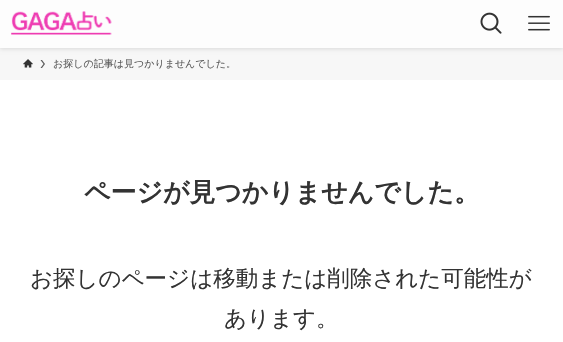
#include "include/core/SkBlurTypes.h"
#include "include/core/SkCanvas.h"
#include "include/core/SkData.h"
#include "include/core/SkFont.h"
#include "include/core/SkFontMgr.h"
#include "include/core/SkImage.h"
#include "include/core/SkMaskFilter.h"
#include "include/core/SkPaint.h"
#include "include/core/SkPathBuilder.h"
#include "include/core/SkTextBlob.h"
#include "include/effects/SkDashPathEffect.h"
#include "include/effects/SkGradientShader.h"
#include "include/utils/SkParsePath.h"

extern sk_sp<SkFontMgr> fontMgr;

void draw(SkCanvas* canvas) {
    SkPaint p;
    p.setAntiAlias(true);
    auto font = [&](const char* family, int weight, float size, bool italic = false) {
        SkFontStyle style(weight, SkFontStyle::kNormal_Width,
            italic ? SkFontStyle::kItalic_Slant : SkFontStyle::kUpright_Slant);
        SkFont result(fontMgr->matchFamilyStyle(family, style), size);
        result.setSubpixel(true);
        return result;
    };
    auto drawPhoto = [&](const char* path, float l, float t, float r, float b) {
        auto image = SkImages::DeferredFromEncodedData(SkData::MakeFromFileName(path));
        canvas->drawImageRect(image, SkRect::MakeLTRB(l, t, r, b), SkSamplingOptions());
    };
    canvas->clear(0xFFFFFFFF);
    p.setColor(0xFFF7F7F7);
    canvas->drawRect(SkRect::MakeLTRB(0, 48, 563, 80), p);
    p.setColor(0x1F000000);
    p.setMaskFilter(SkMaskFilter::MakeBlur(kNormal_SkBlurStyle, 2));
    canvas->drawRect(SkRect::MakeLTRB(0, 1, 563, 49), p);
    p.setMaskFilter(nullptr);
    p.setColor(0xFFFDFDFD);
    canvas->drawRect(SkRect::MakeLTRB(0, 0, 563, 48), p);
    drawPhoto("media/1.png", 11, 11, 112, 35);
    drawPhoto("media/2.png", 480, 12, 502, 34);
    drawPhoto("media/3.png", 528, 15, 550, 31);
    drawPhoto("media/4.png", 23, 59, 33, 68);
    p.setColor(0xFF5A5A5A);
    canvas->drawPath(SkPathBuilder().moveTo(42, 60).lineTo(40.5f, 60).lineTo(43.5f, 64).lineTo(40.5f, 68).lineTo(42, 68).lineTo(45, 64).close().detach(), p);
    auto font1 = font("WenQuanYi Zen Hei", 500, 10);
    canvas->drawString("お探しの記事は見つかりませんでした。", 53, 67, font1, p);
    auto font2 = font("WenQuanYi Zen Hei", 700, 25.9f);
    p.setColor(0xFF333333);
    canvas->drawString("ページが見つかりませんでした。", 84, 201, font2, p);
    auto font3 = font("WenQuanYi Zen Hei", 500, 22.5f);
    canvas->drawString("お探しのページは移動または削除された可能性が", 30, 286, font3, p);
    canvas->drawString("あります。", 224, 326, font3, p);
}
